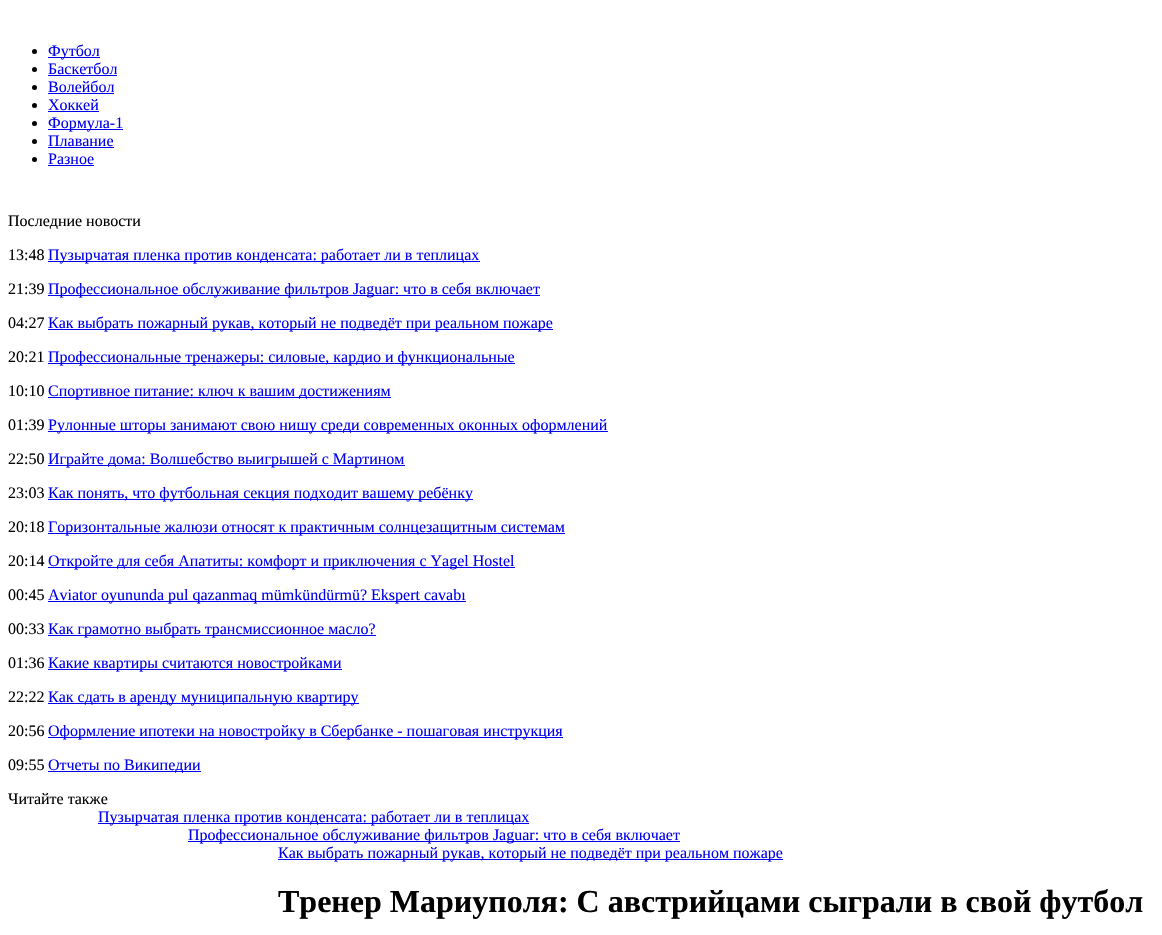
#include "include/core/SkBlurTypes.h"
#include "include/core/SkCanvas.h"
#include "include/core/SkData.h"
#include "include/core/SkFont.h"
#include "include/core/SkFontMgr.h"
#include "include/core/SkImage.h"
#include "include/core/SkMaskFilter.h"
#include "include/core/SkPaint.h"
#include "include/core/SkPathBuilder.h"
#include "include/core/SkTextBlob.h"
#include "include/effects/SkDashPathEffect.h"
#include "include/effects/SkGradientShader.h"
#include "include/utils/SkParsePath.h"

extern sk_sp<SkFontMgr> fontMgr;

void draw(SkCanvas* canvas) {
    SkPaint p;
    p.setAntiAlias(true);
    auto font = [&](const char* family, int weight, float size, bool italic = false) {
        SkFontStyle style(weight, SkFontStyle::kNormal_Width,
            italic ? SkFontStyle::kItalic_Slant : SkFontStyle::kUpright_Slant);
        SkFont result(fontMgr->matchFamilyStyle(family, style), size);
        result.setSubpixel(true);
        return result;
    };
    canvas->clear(0xFFFFFFFF);
    p.setColor(0xFF000000);
    canvas->drawCircle(34.5f, 51.5f, 2.5f, p);
    p.setColor(0xFF0000EE);
    canvas->drawRect(SkRect::MakeLTRB(48, 57, 100, 58), p);
    auto font1 = font("Liberation Serif", 400, 16);
    canvas->drawString("Футбол", 48, 56, font1, p);
    p.setColor(0xFF000000);
    canvas->drawCircle(34.5f, 69.5f, 2.5f, p);
    p.setColor(0xFF0000EE);
    canvas->drawString("Баскетбол", 48, 74, font1, p);
    canvas->drawRect(SkRect::MakeLTRB(48, 75, 117, 76), p);
    p.setColor(0xFF000000);
    canvas->drawCircle(34.5f, 87.5f, 2.5f, p);
    p.setColor(0xFF0000EE);
    canvas->drawString("Волейбол", 48, 92, font1, p);
    canvas->drawRect(SkRect::MakeLTRB(48, 93, 114, 94), p);
    p.setColor(0xFF000000);
    canvas->drawCircle(34.5f, 105.5f, 2.5f, p);
    p.setColor(0xFF0000EE);
    canvas->drawString("Хоккей", 48, 110, font1, p);
    canvas->drawRect(SkRect::MakeLTRB(48, 111, 99, 112), p);
    p.setColor(0xFF000000);
    canvas->drawCircle(34.5f, 123.5f, 2.5f, p);
    p.setColor(0xFF0000EE);
    canvas->drawRect(SkRect::MakeLTRB(48, 129, 123, 130), p);
    canvas->drawString("Формула-1", 48, 128, font1, p);
    p.setColor(0xFF000000);
    canvas->drawCircle(34.5f, 141.5f, 2.5f, p);
    p.setColor(0xFF0000EE);
    canvas->drawString("Плавание", 48, 146, font1, p);
    canvas->drawRect(SkRect::MakeLTRB(48, 147, 114, 148), p);
    p.setColor(0xFF000000);
    canvas->drawCircle(34.5f, 159.5f, 2.5f, p);
    p.setColor(0xFF0000EE);
    canvas->drawString("Разное", 48, 164, font1, p);
    canvas->drawRect(SkRect::MakeLTRB(48, 165, 94, 166), p);
    p.setColor(0xFF000000);
    canvas->drawString("Последние новости", 8, 226, font1, p);
    canvas->drawString("13:48", 8, 260, font1, p);
    p.setColor(0xFF0000EE);
    canvas->drawRect(SkRect::MakeLTRB(48, 261, 480, 262), p);
    canvas->drawString("Пузырчатая пленка против конденсата: работает ли в теплицах", 48, 260, font1, p);
    p.setColor(0xFF000000);
    canvas->drawString("21:39", 8, 294, font1, p);
    p.setColor(0xFF0000EE);
    canvas->drawRect(SkRect::MakeLTRB(48, 295, 540, 296), p);
    canvas->drawString("Профессиональное обслуживание фильтров Jaguar: что в себя включает", 48, 294, font1, p);
    p.setColor(0xFF000000);
    canvas->drawString("04:27", 8, 328, font1, p);
    p.setColor(0xFF0000EE);
    canvas->drawRect(SkRect::MakeLTRB(48, 329, 553, 330), p);
    canvas->drawString("Как выбрать пожарный рукав, который не подведёт при реальном пожаре", 48, 328, font1, p);
    p.setColor(0xFF000000);
    canvas->drawString("20:21", 8, 362, font1, p);
    p.setColor(0xFF0000EE);
    canvas->drawRect(SkRect::MakeLTRB(48, 363, 515, 364), p);
    canvas->drawString("Профессиональные тренажеры: силовые, кардио и функциональные", 48, 362, font1, p);
    p.setColor(0xFF000000);
    canvas->drawString("10:10", 8, 396, font1, p);
    p.setColor(0xFF0000EE);
    canvas->drawRect(SkRect::MakeLTRB(48, 397, 391, 398), p);
    canvas->drawString("Спортивное питание: ключ к вашим достижениям", 48, 396, font1, p);
    p.setColor(0xFF000000);
    canvas->drawString("01:39", 8, 430, font1, p);
    p.setColor(0xFF0000EE);
    canvas->drawRect(SkRect::MakeLTRB(48, 431, 608, 432), p);
    canvas->drawString("Рулонные шторы занимают свою нишу среди современных оконных оформлений", 48, 430, font1, p);
    p.setColor(0xFF000000);
    canvas->drawString("22:50", 8, 464, font1, p);
    p.setColor(0xFF0000EE);
    canvas->drawRect(SkRect::MakeLTRB(48, 465, 405, 466), p);
    canvas->drawString("Играйте дома: Волшебство выигрышей с Мартином", 48, 464, font1, p);
    p.setColor(0xFF000000);
    canvas->drawString("23:03", 8, 498, font1, p);
    p.setColor(0xFF0000EE);
    canvas->drawRect(SkRect::MakeLTRB(48, 499, 473, 500), p);
    canvas->drawString("Как понять, что футбольная секция подходит вашему ребёнку", 48, 498, font1, p);
    p.setColor(0xFF000000);
    canvas->drawString("20:18", 8, 532, font1, p);
    p.setColor(0xFF0000EE);
    canvas->drawRect(SkRect::MakeLTRB(48, 533, 565, 534), p);
    canvas->drawString("Горизонтальные жалюзи относят к практичным солнцезащитным системам", 48, 532, font1, p);
    p.setColor(0xFF000000);
    canvas->drawString("20:14", 8, 566, font1, p);
    p.setColor(0xFF0000EE);
    canvas->drawRect(SkRect::MakeLTRB(48, 567, 515, 568), p);
    canvas->drawString("Откройте для себя Апатиты: комфорт и приключения с Yagel Hostel", 48, 566, font1, p);
    p.setColor(0xFF000000);
    canvas->drawString("00:45", 8, 600, font1, p);
    p.setColor(0xFF0000EE);
    canvas->drawRect(SkRect::MakeLTRB(48, 601, 466, 602), p);
    canvas->drawString("Aviator oyununda pul qazanmaq mümkündürmü? Ekspert cavabı", 48, 600, font1, p);
    p.setColor(0xFF000000);
    canvas->drawString("00:33", 8, 634, font1, p);
    p.setColor(0xFF0000EE);
    canvas->drawRect(SkRect::MakeLTRB(48, 635, 376, 636), p);
    canvas->drawString("Как грамотно выбрать трансмиссионное масло?", 48, 634, font1, p);
    p.setColor(0xFF000000);
    canvas->drawString("01:36", 8, 668, font1, p);
    p.setColor(0xFF0000EE);
    canvas->drawRect(SkRect::MakeLTRB(48, 669, 342, 670), p);
    canvas->drawString("Какие квартиры считаются новостройками", 48, 668, font1, p);
    p.setColor(0xFF000000);
    canvas->drawString("22:22", 8, 702, font1, p);
    p.setColor(0xFF0000EE);
    canvas->drawRect(SkRect::MakeLTRB(48, 703, 359, 704), p);
    canvas->drawString("Как сдать в аренду муниципальную квартиру", 48, 702, font1, p);
    p.setColor(0xFF000000);
    canvas->drawString("20:56", 8, 736, font1, p);
    p.setColor(0xFF0000EE);
    canvas->drawRect(SkRect::MakeLTRB(48, 737, 563, 738), p);
    canvas->drawString("Оформление ипотеки на новостройку в Сбербанке - пошаговая инструкция", 48, 736, font1, p);
    p.setColor(0xFF000000);
    canvas->drawString("09:55", 8, 770, font1, p);
    p.setColor(0xFF0000EE);
    canvas->drawRect(SkRect::MakeLTRB(48, 771, 201, 772), p);
    canvas->drawString("Отчеты по Википедии", 48, 770, font1, p);
    p.setColor(0xFF000000);
    canvas->drawString("Читайте также", 8, 804, font1, p);
    p.setColor(0xFF0000EE);
    canvas->drawRect(SkRect::MakeLTRB(98, 823, 529, 824), p);
    canvas->drawString("Пузырчатая пленка против конденсата: работает ли в теплицах", 98, 822, font1, p);
    canvas->drawRect(SkRect::MakeLTRB(188, 841, 680, 842), p);
    canvas->drawString("Профессиональное обслуживание фильтров Jaguar: что в себя включает", 188, 840, font1, p);
    canvas->drawRect(SkRect::MakeLTRB(278, 859, 783, 860), p);
    canvas->drawString("Как выбрать пожарный рукав, который не подведёт при реальном пожаре", 278, 858, font1, p);
    auto font2 = font("Liberation Serif", 700, 32);
    p.setColor(0xFF000000);
    canvas->drawString("Тренер Мариуполя: С австрийцами сыграли в свой футбол", 278, 912, font2, p);
}
